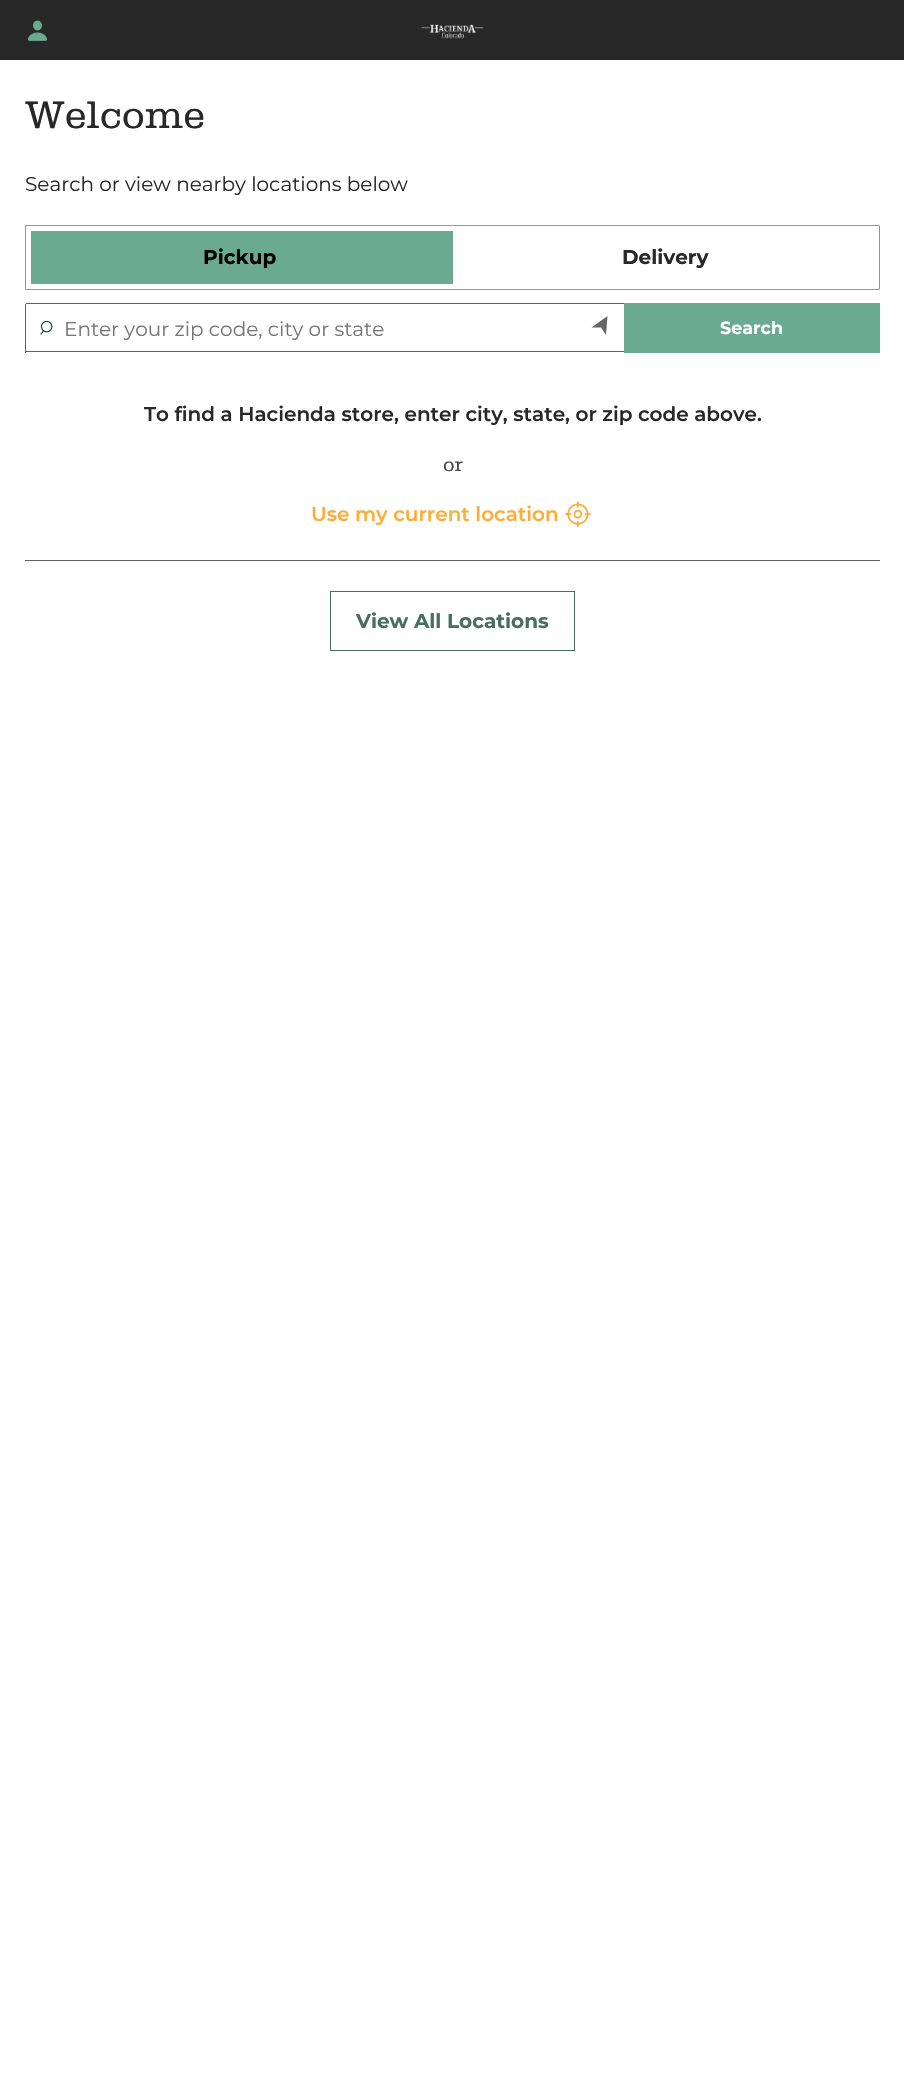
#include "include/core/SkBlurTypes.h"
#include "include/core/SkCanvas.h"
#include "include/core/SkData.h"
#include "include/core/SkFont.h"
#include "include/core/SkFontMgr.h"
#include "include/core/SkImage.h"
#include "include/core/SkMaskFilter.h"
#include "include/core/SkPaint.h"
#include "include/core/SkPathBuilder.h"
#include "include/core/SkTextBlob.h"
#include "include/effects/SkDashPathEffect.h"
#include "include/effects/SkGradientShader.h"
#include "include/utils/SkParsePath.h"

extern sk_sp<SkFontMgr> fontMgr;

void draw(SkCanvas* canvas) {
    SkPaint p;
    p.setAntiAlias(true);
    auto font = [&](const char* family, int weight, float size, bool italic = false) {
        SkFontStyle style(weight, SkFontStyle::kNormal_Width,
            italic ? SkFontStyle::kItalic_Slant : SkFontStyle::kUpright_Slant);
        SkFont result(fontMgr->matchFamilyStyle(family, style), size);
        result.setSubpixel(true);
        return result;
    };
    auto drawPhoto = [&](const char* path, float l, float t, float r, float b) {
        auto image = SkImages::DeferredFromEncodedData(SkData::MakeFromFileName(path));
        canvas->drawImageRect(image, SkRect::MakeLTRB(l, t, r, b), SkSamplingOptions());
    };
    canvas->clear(0xFFFFFFFF);
    p.setColor(0xFF282828);
    canvas->drawRect(SkRect::MakeLTRB(0, 0, 904, 60), p);
    drawPhoto("media/1.png", 28, 20, 47, 41);
    drawPhoto("media/2.png", 421, 24, 484, 39);
    auto font1 = font("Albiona", 300, 40);
    canvas->drawString("Welcome", 25, 128, font1, p);
    auto font2 = font("Montserrat", 400, 20);
    canvas->drawString("Search or view nearby locations below", 25, 191, font2, p);
    p.setStyle(SkPaint::kStroke_Style);
    p.setStrokeWidth(1);
    p.setColor(0xFF6AAA90);
    canvas->drawRoundRect(SkRect::MakeLTRB(25.5f, 225.5f, 879.5f, 289.5f), 0.5f, 0.5f, p);
    p.setStyle(SkPaint::kFill_Style);
    canvas->drawRect(SkRect::MakeLTRB(31, 231, 453, 284), p);
    auto font3 = font("Montserrat", 700, 20);
    p.setColor(0xFF000000);
    canvas->drawString("Pickup", 203, 264, font3, p);
    p.setColor(0xFF282828);
    canvas->drawString("Delivery", 622, 264, font3, p);
    drawPhoto("media/3.png", 40, 320, 53, 335);
    {
        const struct { float l, t, r, b; SkColor color; } items[] = {
            {26, 303, 624, 304, 0xFF646260},
            {26, 351, 624, 352, 0xFF646260},
            {25, 304, 26, 353, 0xFF646260},
        };
        for (auto [l, t, r, b, color] : items) {
            p.setColor(color);
            canvas->drawRect(SkRect::MakeLTRB(l, t, r, b), p);
        }
    }
    p.setColor(0xFF757575);
    canvas->drawString("Enter your zip code, city or state", 64, 336, font2, p);
    p.setColor(0xFF666666);
    canvas->drawPath(SkPathBuilder(SkPathFillType::kEvenOdd).moveTo(606, 335).lineTo(607.5f, 316).lineTo(591.5f, 327.5f).lineTo(601, 327.5f).close().detach(), p);
    p.setColor(0xFF6AAA90);
    canvas->drawRect(SkRect::MakeLTRB(624, 303, 880, 353), p);
    auto font4 = font("Montserrat", 700, 17.5f);
    p.setColor(0xFFFFFFFF);
    canvas->drawString("Search", 720, 334, font4, p);
    auto font5 = font("Montserrat", 600, 20);
    p.setColor(0xFF282828);
    canvas->drawString("To find a Hacienda store, enter city, state, or zip code above.", 144, 421, font5, p);
    auto font6 = font("Albiona", 300, 20);
    p.setColor(0xFF4A4A4A);
    canvas->drawString("or", 443, 471, font6, p);
    p.setColor(0xFFFAAD3A);
    canvas->drawString("Use my current location", 311, 521, font5, p);
    drawPhoto("media/4.png", 565, 501, 591, 527);
    p.setColor(0xFF646260);
    canvas->drawRect(SkRect::MakeLTRB(25, 560, 880, 561), p);
    p.setStyle(SkPaint::kStroke_Style);
    p.setColor(0xFF476E5E);
    canvas->drawRect(SkRect::MakeLTRB(330.5f, 591.5f, 574.5f, 650.5f), p);
    p.setStyle(SkPaint::kFill_Style);
    canvas->drawString("View All Locations", 356, 628, font3, p);
}
